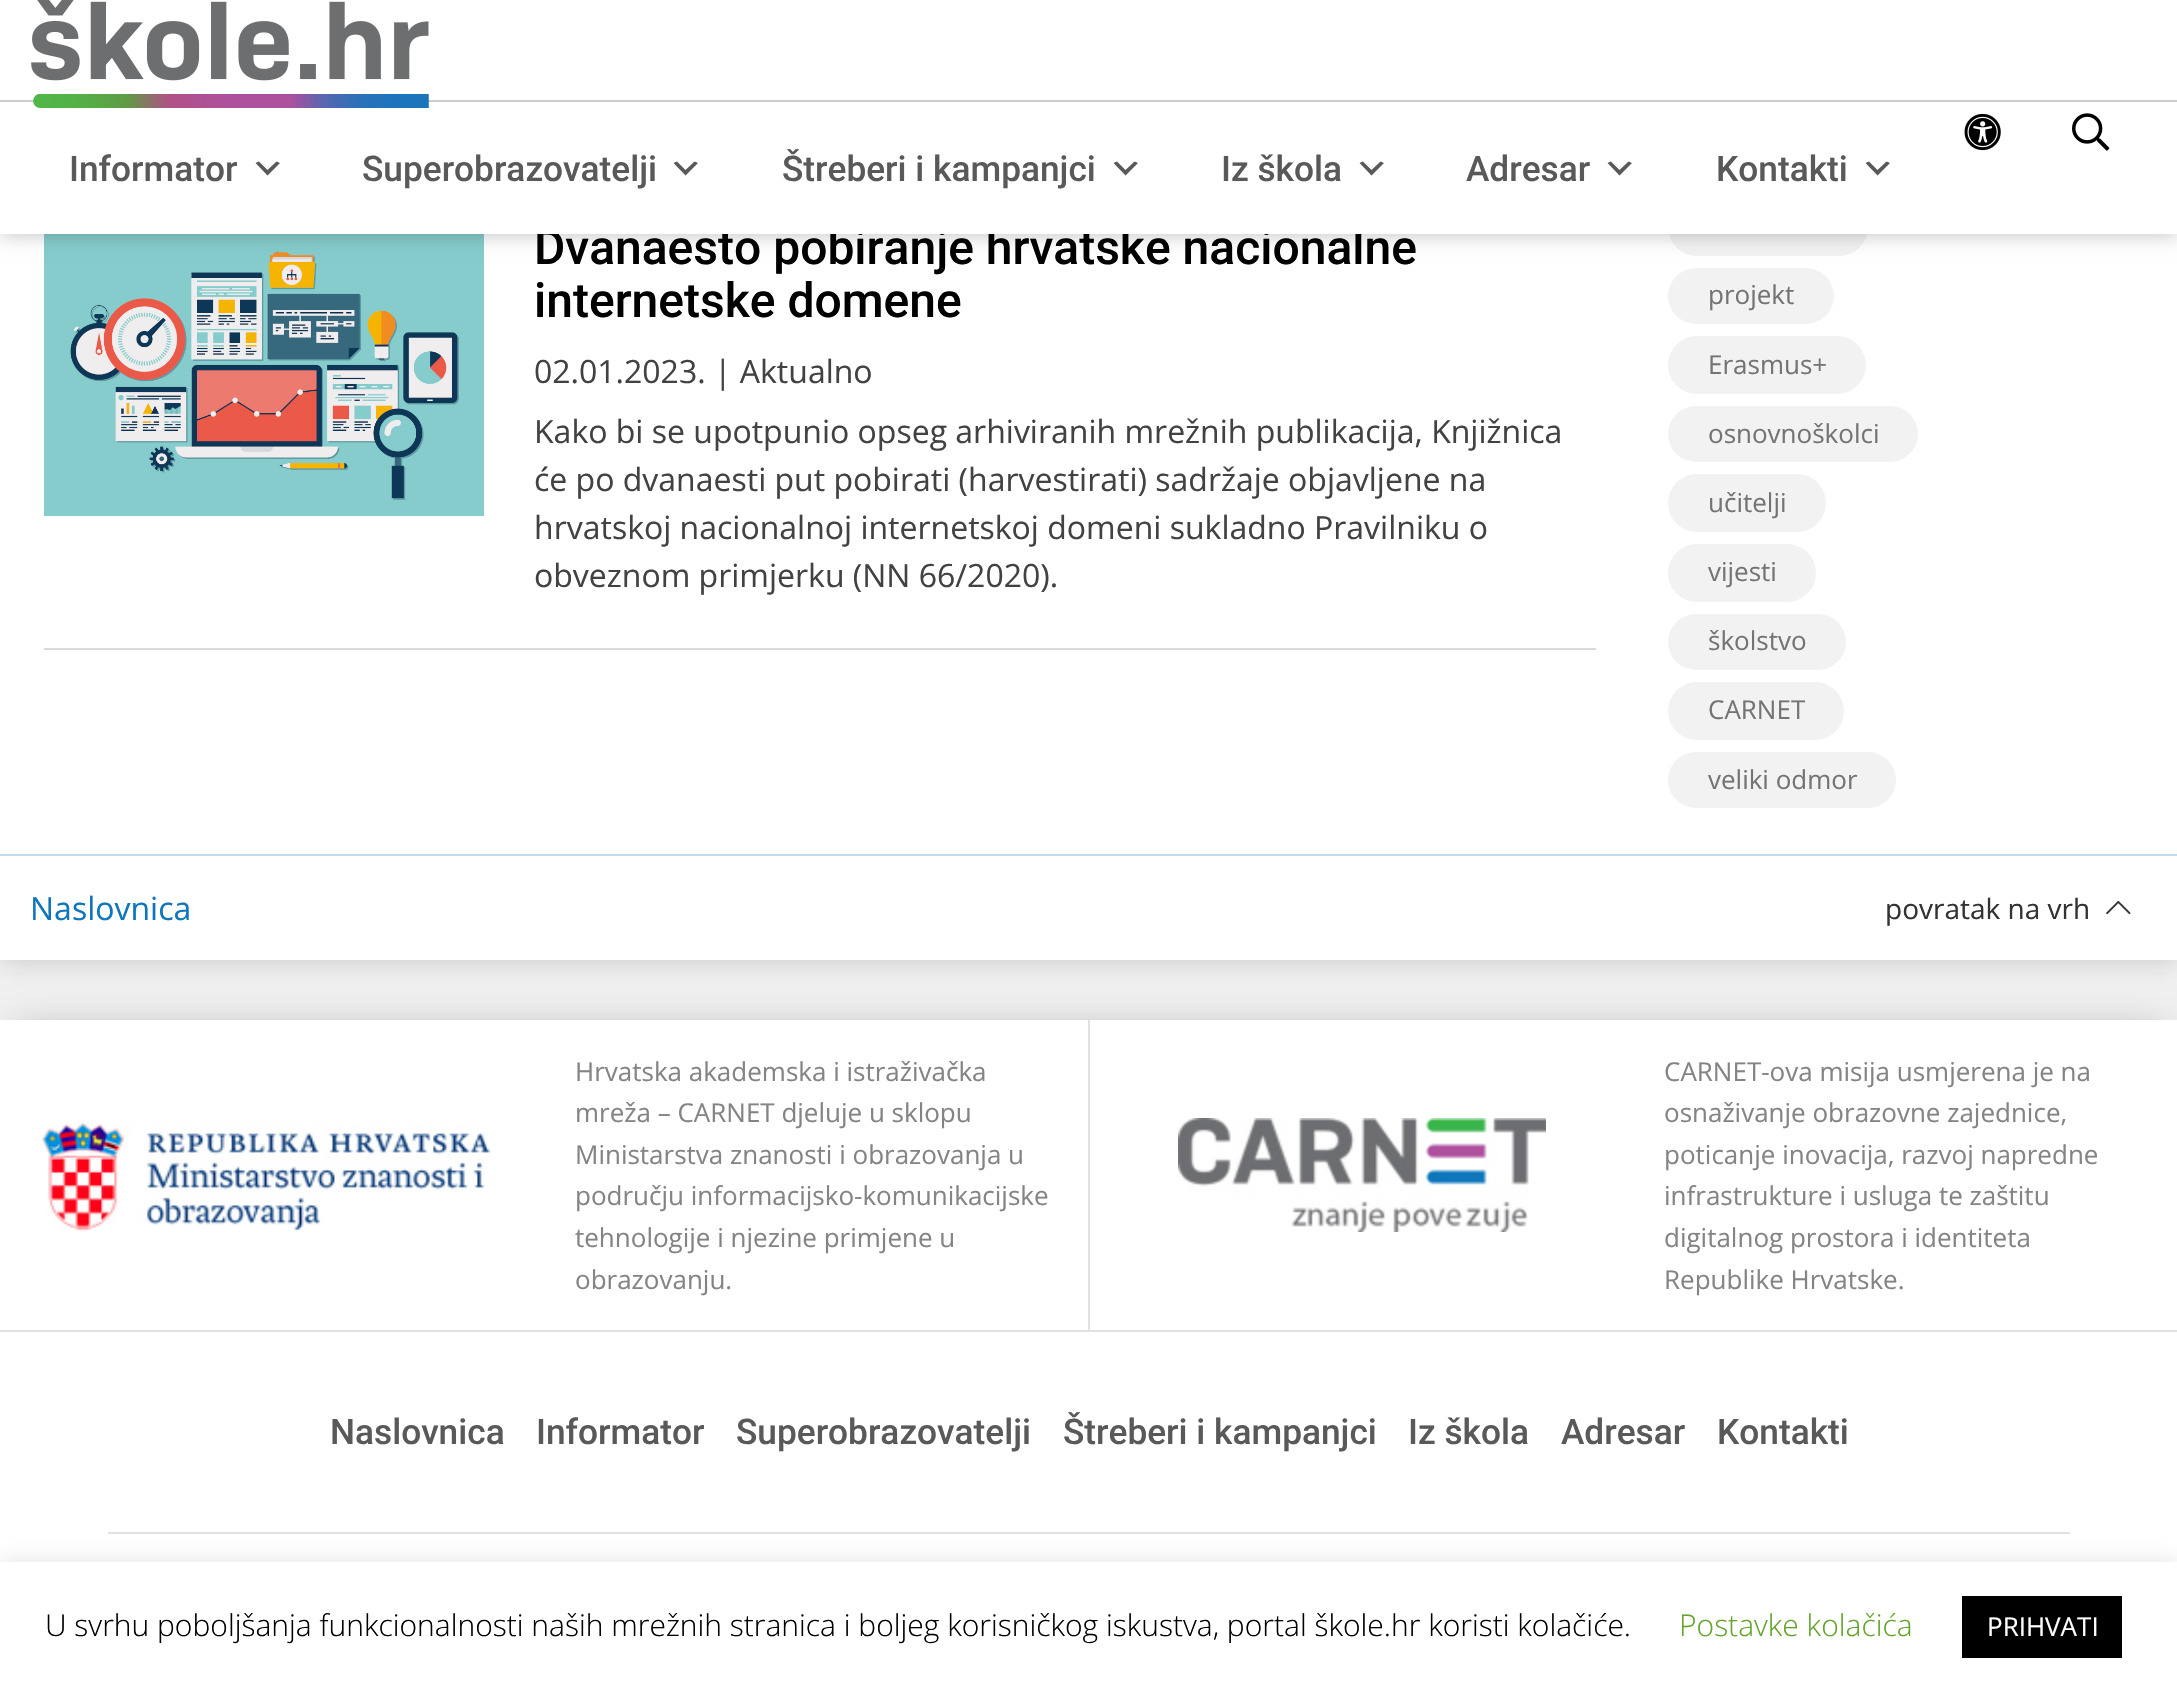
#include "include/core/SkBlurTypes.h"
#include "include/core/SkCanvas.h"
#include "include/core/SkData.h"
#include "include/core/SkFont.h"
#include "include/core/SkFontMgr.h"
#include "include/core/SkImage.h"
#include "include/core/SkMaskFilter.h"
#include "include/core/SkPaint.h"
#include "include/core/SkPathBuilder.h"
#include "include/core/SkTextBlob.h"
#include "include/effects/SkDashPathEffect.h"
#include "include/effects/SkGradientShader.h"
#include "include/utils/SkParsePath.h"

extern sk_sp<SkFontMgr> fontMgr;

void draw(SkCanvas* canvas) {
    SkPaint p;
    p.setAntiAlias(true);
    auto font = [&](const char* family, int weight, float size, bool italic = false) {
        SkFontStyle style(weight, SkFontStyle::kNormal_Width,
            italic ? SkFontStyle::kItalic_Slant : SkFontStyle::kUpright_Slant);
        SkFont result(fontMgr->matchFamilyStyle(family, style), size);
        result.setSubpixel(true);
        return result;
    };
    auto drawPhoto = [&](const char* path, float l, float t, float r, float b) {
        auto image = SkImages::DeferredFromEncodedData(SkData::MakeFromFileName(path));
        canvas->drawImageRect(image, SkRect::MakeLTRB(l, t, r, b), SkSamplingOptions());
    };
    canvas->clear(0xFFF2F2F2);
    p.setColor(0x26000000);
    p.setMaskFilter(SkMaskFilter::MakeBlur(kNormal_SkBlurStyle, 12));
    canvas->drawRect(SkRect::MakeLTRB(0, -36, 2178, 964), p);
    p.setMaskFilter(nullptr);
    p.setColor(0xFFFFFFFF);
    canvas->drawRect(SkRect::MakeLTRB(0, 234, 2177, 960), p);
    drawPhoto("media/4.png", 44, 234, 484, 516);
    p.setColor(0xFFF2F2F2);
    canvas->drawRoundRect(SkRect::MakeLTRB(1668, 198, 1868, 256), 29, 29, p);
    p.setColor(0x40000000);
    p.setMaskFilter(SkMaskFilter::MakeBlur(kNormal_SkBlurStyle, 10));
    canvas->drawRect(SkRect::MakeLTRB(0, 0, 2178, 234), p);
    p.setMaskFilter(nullptr);
    auto font1 = font("Roboto", 500, 48);
    p.setColor(0xFF000000);
    canvas->drawString("Dvanaesto pobiranje hrvatske nacionalne", 534, 264, font1, p);
    p.setColor(0xFFFFFFFF);
    canvas->drawRect(SkRect::MakeLTRB(0, 0, 2177, 234), p);
    p.setColor(0xFFCCCCCC);
    canvas->drawRect(SkRect::MakeLTRB(0, 100, 2177, 102), p);
    drawPhoto("media/1.png", 31, 0, 429, 108);
    drawPhoto("media/2.png", 1964, 113, 2001, 151);
    drawPhoto("media/3.png", 2072, 113, 2110, 151);
    auto font2 = font("Roboto", 500, 35.25f);
    p.setColor(0xFF595959);
    canvas->drawString("Informator", 69, 181, font2, p);
    canvas->drawPath(SkPathBuilder().moveTo(259, 161.5f).lineTo(267.5f, 170).lineTo(276.5f, 161.5f).lineTo(280, 163).lineTo(267.5f, 175.5f).lineTo(255.5f, 163).close().detach(), p);
    canvas->drawString("Superobrazovatelji", 362, 181, font2, p);
    canvas->drawPath(SkPathBuilder().moveTo(677, 161.5f).lineTo(685.5f, 170).lineTo(694.5f, 161.5f).lineTo(698, 163).lineTo(685.5f, 175.5f).lineTo(673.5f, 163).close().detach(), p);
    canvas->drawString("Štreberi i kampanjci", 782, 181, font2, p);
    canvas->drawPath(SkPathBuilder().moveTo(1117, 161.5f).lineTo(1125.5f, 170).lineTo(1134.5f, 161.5f).lineTo(1138, 163).lineTo(1125.5f, 175.5f).lineTo(1113.5f, 163).close().detach(), p);
    canvas->drawString("Iz škola", 1221, 181, font2, p);
    canvas->drawPath(SkPathBuilder().moveTo(1363, 161.5f).lineTo(1371.5f, 170).lineTo(1380.5f, 161.5f).lineTo(1384, 163).lineTo(1371.5f, 175.5f).lineTo(1359.5f, 163).close().detach(), p);
    canvas->drawString("Adresar", 1466, 181, font2, p);
    canvas->drawPath(SkPathBuilder().moveTo(1611, 161.5f).lineTo(1619.5f, 170).lineTo(1628.5f, 161.5f).lineTo(1632, 163).lineTo(1619.5f, 175.5f).lineTo(1607.5f, 163).close().detach(), p);
    canvas->drawString("Kontakti", 1716, 181, font2, p);
    canvas->drawPath(SkPathBuilder().moveTo(1869, 161.5f).lineTo(1877.5f, 170).lineTo(1886.5f, 161.5f).lineTo(1890, 163).lineTo(1877.5f, 175.5f).lineTo(1865.5f, 163).close().detach(), p);
    p.setColor(0xFFD9DADA);
    canvas->drawRect(SkRect::MakeLTRB(44, 648, 1596, 650), p);
    p.setColor(0xFF000000);
    canvas->drawString("internetske domene", 534, 317, font1, p);
    auto font3 = font("Open Sans", 400, 32);
    p.setColor(0xFF424242);
    {
        const struct { const char* s; float x, y; } items[] = {
            {"02.01.2023. | Aktualno", 534, 383},
            {"Kako bi se upotpunio opseg arhiviranih mrežnih publikacija, Knjižnica", 534, 443},
            {"će po dvanaesti put pobirati (harvestirati) sadržaje objavljene na", 534, 491},
            {"hrvatskoj nacionalnoj internetskoj domeni sukladno Pravilniku o", 534, 539},
            {"obveznom primjerku (NN 66/2020).", 534, 587},
        };
        for (auto [s, x, y] : items) {
            canvas->drawString(s, x, y, font3, p);
        }
    }
    p.setColor(0xFFF2F2F2);
    canvas->drawRoundRect(SkRect::MakeLTRB(1668, 268, 1834, 324), 28, 28, p);
    auto font4 = font("Open Sans", 400, 26);
    p.setColor(0xFF737473);
    canvas->drawString("projekt", 1708, 304, font4, p);
    p.setColor(0xFFF2F2F2);
    canvas->drawRoundRect(SkRect::MakeLTRB(1668, 336, 1866, 394), 29, 29, p);
    p.setColor(0xFF737473);
    canvas->drawString("Erasmus+", 1708, 374, font4, p);
    p.setColor(0xFFF2F2F2);
    canvas->drawRoundRect(SkRect::MakeLTRB(1668, 406, 1918, 462), 28, 28, p);
    p.setColor(0xFF737473);
    canvas->drawString("osnovnoškolci", 1708, 443, font4, p);
    p.setColor(0xFFF2F2F2);
    canvas->drawRoundRect(SkRect::MakeLTRB(1668, 474, 1826, 532), 29, 29, p);
    p.setColor(0xFF737473);
    canvas->drawString("učitelji", 1708, 512, font4, p);
    p.setColor(0xFFF2F2F2);
    canvas->drawRoundRect(SkRect::MakeLTRB(1668, 544, 1816, 602), 29, 29, p);
    p.setColor(0xFF737473);
    canvas->drawString("vijesti", 1708, 581, font4, p);
    p.setColor(0xFFF2F2F2);
    canvas->drawRoundRect(SkRect::MakeLTRB(1668, 614, 1846, 670), 28, 28, p);
    p.setColor(0xFF737473);
    canvas->drawString("školstvo", 1708, 650, font4, p);
    p.setColor(0xFFF2F2F2);
    canvas->drawRoundRect(SkRect::MakeLTRB(1668, 682, 1844, 740), 29, 29, p);
    p.setColor(0xFF737473);
    canvas->drawString("CARNET", 1708, 719, font4, p);
    p.setColor(0xFFF2F2F2);
    canvas->drawRoundRect(SkRect::MakeLTRB(1668, 752, 1896, 808), 28, 28, p);
    p.setColor(0xFF737473);
    canvas->drawString("veliki odmor", 1708, 789, font4, p);
    p.setColor(0xFFC3DBEB);
    canvas->drawRect(SkRect::MakeLTRB(0, 854, 2177, 856), p);
    p.setColor(0xFF0F75BC);
    canvas->drawString("Naslovnica", 30, 920, font3, p);
    auto font5 = font("Open Sans", 400, 28);
    p.setColor(0xFF333333);
    canvas->drawString("povratak na vrh", 1885, 919, font5, p);
    drawPhoto("media/5.png", 2106, 900, 2131, 915);
    p.setColor(0x4D000000);
    p.setMaskFilter(SkMaskFilter::MakeBlur(kNormal_SkBlurStyle, 20));
    canvas->drawRect(SkRect::MakeLTRB(12, 1032, 2166, 1680), p);
    p.setMaskFilter(nullptr);
    p.setColor(0xFFFFFFFF);
    canvas->drawRect(SkRect::MakeLTRB(0, 1020, 2177, 1562), p);
    p.setColor(0xFFDFE1E5);
    canvas->drawRect(SkRect::MakeLTRB(0, 1330, 2177, 1332), p);
    drawPhoto("media/6.png", 42, 1122, 491, 1232);
    canvas->drawRect(SkRect::MakeLTRB(1088, 1020, 1090, 1330), p);
    p.setColor(0xFF848484);
    {
        const struct { const char* s; float x, y; } items[] = {
            {"Hrvatska akademska i istraživačka", 575, 1081},
            {"mreža – CARNET djeluje u sklopu", 575, 1122},
            {"Ministarstva znanosti i obrazovanja u", 575, 1164},
            {"području informacijsko-komunikacijske", 575, 1205},
            {"tehnologije i njezine primjene u", 575, 1247},
            {"obrazovanju.", 575, 1289},
        };
        for (auto [s, x, y] : items) {
            canvas->drawString(s, x, y, font4, p);
        }
    }
    drawPhoto("media/7.png", 1178, 1118, 1546, 1232);
    {
        const struct { const char* s; float x, y; } items[] = {
            {"CARNET-ova misija usmjerena je na", 1664, 1081},
            {"osnaživanje obrazovne zajednice,", 1664, 1122},
            {"poticanje inovacija, razvoj napredne", 1664, 1164},
            {"infrastrukture i usluga te zaštitu", 1664, 1205},
            {"digitalnog prostora i identiteta", 1664, 1247},
            {"Republike Hrvatske.", 1664, 1289},
        };
        for (auto [s, x, y] : items) {
            canvas->drawString(s, x, y, font4, p);
        }
    }
    p.setColor(0xFFDFE1E5);
    canvas->drawRect(SkRect::MakeLTRB(108, 1532, 2070, 1534), p);
    p.setColor(0xFF595959);
    {
        const struct { const char* s; float x, y; } items[] = {
            {"Naslovnica", 330, 1444},
            {"Informator", 536, 1444},
            {"Superobrazovatelji", 736, 1444},
            {"Štreberi i kampanjci", 1063, 1444},
            {"Iz škola", 1408, 1444},
            {"Adresar", 1561, 1444},
            {"Kontakti", 1717, 1444},
        };
        for (auto [s, x, y] : items) {
            canvas->drawString(s, x, y, font2, p);
        }
    }
    p.setColor(0x4DACABAB);
    p.setMaskFilter(SkMaskFilter::MakeBlur(kNormal_SkBlurStyle, 10));
    canvas->drawRect(SkRect::MakeLTRB(0, 1560, 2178, 1690), p);
    p.setMaskFilter(nullptr);
    p.setColor(0xFFFFFFFF);
    canvas->drawRect(SkRect::MakeLTRB(0, 1562, 2177, 1691), p);
    auto font6 = font("Open Sans", 300, 30);
    p.setColor(0xFF000000);
    canvas->drawString("U svrhu poboljšanja funkcionalnosti naših mrežnih stranica i boljeg korisničkog iskustva, portal škole.hr koristi kolačiće.", 45, 1636, font6, p);
    p.setColor(0xFF62A329);
    canvas->drawString("Postavke kolačića", 1679, 1636, font6, p);
    p.setColor(0xFF000000);
    canvas->drawRect(SkRect::MakeLTRB(1962, 1596, 2122, 1658), p);
    p.setColor(0xFFFFFFFF);
    canvas->drawString("PRIHVATI", 1987, 1636, font4, p);
}
